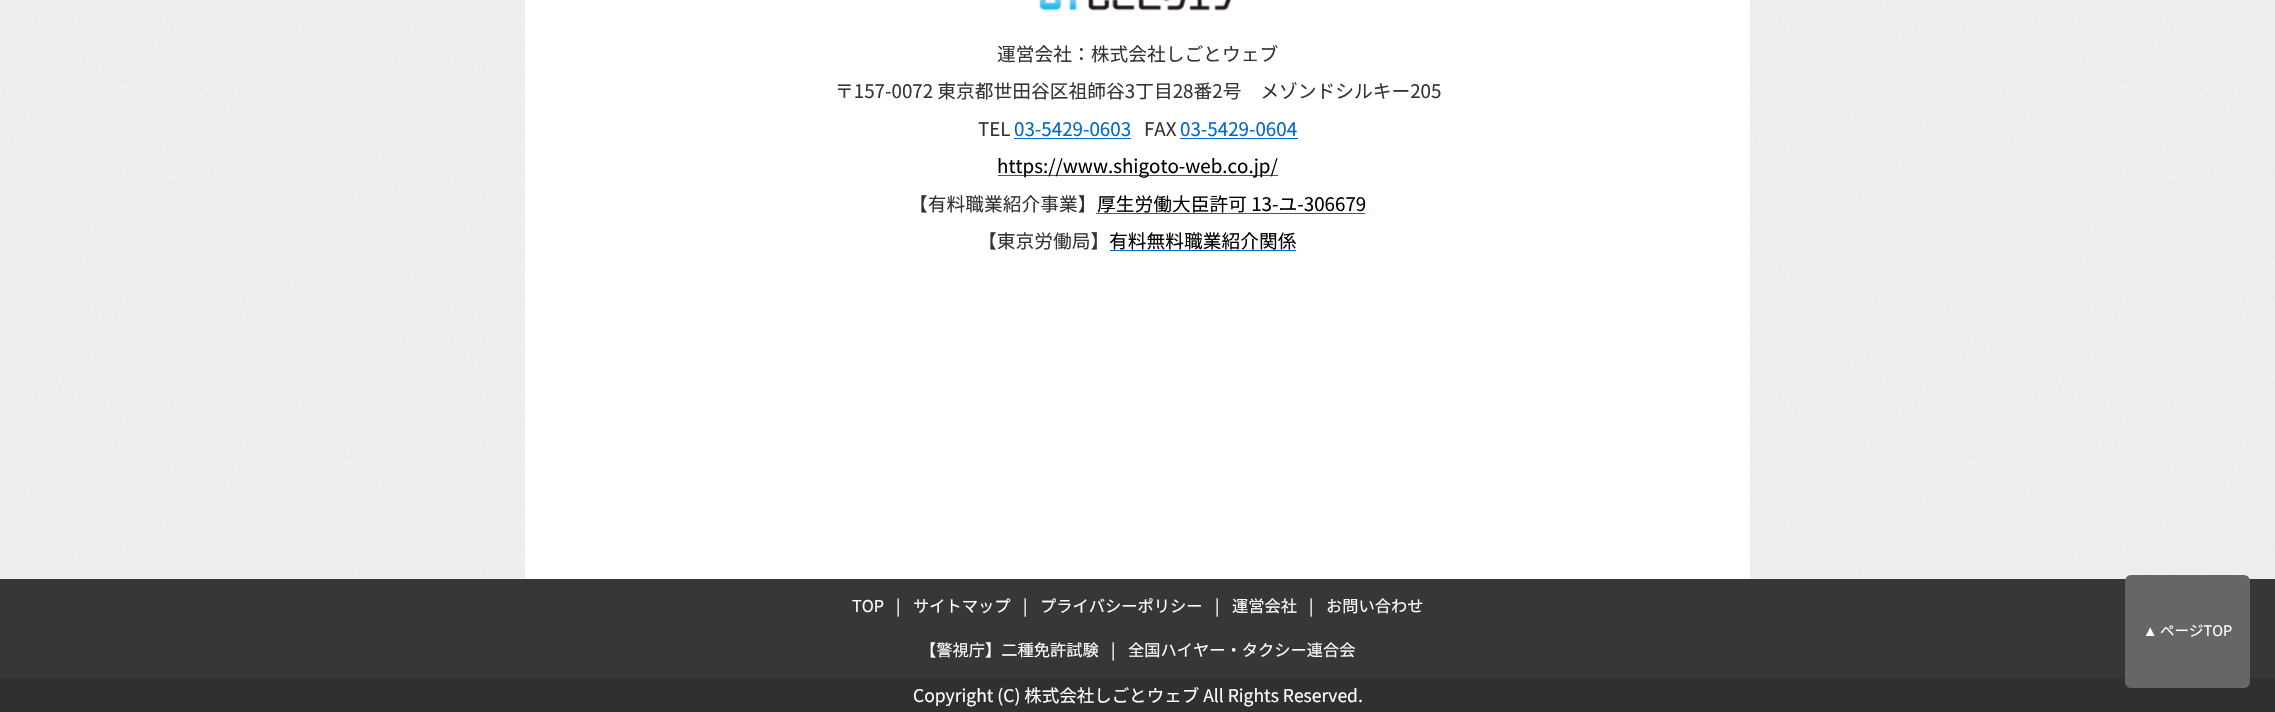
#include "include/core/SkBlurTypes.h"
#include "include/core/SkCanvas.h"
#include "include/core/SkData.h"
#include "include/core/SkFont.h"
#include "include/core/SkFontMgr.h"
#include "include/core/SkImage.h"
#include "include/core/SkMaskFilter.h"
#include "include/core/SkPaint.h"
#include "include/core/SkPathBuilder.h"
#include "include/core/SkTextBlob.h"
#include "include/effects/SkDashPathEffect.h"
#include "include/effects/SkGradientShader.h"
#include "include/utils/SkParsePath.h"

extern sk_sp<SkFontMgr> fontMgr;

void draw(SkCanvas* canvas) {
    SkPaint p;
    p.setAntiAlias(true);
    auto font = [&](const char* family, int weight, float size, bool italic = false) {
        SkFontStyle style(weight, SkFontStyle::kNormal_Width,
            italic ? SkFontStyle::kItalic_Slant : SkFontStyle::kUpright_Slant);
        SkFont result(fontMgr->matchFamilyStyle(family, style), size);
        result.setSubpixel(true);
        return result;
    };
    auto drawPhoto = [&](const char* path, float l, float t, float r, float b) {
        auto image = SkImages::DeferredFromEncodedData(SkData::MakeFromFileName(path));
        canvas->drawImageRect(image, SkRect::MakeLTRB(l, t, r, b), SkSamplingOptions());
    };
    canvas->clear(0xFFF2F5F8);
    drawPhoto("media/1.png", 0, 0, 2275, 579);
    p.setColor(0xFFFFFFFF);
    canvas->drawRect(SkRect::MakeLTRB(525, 0, 1750, 579), p);
    drawPhoto("media/2.png", 1038, 0, 1232, 11);
    auto font1 = font("Noto Sans JP", 400, 18.75f);
    p.setColor(0xFF333333);
    {
        const struct { const char* s; float x, y; } items[] = {
            {"運営会社：株式会社しごとウェブ", 997, 61},
            {"〒157-0072 東京都世田谷区祖師谷3丁目28番2号　メゾンドシルキー205", 835, 98},
            {"TEL", 978, 136},
        };
        for (auto [s, x, y] : items) {
            canvas->drawString(s, x, y, font1, p);
        }
    }
    p.setColor(0xFF0066CC);
    canvas->drawString("03-5429-0603", 1014, 136, font1, p);
    canvas->drawRect(SkRect::MakeLTRB(1014, 138, 1131, 139), p);
    p.setColor(0xFF333333);
    canvas->drawString("FAX", 1144, 136, font1, p);
    p.setColor(0xFF0066CC);
    canvas->drawString("03-5429-0604", 1180, 136, font1, p);
    canvas->drawRect(SkRect::MakeLTRB(1180, 138, 1298, 139), p);
    canvas->drawRect(SkRect::MakeLTRB(998, 175, 1278, 176), p);
    p.setColor(0xFF000000);
    canvas->drawString("https://www.shigoto-web.co.jp/", 997, 173, font1, p);
    p.setColor(0xFF333333);
    canvas->drawString("【有料職業紹介事業】", 909, 211, font1, p);
    p.setColor(0xFF000000);
    canvas->drawString("厚生労働大臣許可 13-ユ-306679", 1097, 211, font1, p);
    p.setColor(0xFF0066CC);
    canvas->drawRect(SkRect::MakeLTRB(1096, 213, 1365, 214), p);
    p.setColor(0xFF333333);
    canvas->drawString("【東京労働局】", 978, 248, font1, p);
    p.setColor(0xFF000000);
    canvas->drawString("有料無料職業紹介関係", 1109, 248, font1, p);
    {
        const struct { float l, t, r, b; SkColor color; } items[] = {
            {1110, 250, 1296, 251, 0xFF0066CC},
            {0, 579, 2275, 678, 0xFF373737},
            {0, 678, 2275, 712, 0xFF303030},
        };
        for (auto [l, t, r, b, color] : items) {
            p.setColor(color);
            canvas->drawRect(SkRect::MakeLTRB(l, t, r, b), p);
        }
    }
    p.setColor(0xFF666666);
    canvas->drawRoundRect(SkRect::MakeLTRB(2125, 575, 2250, 688), 6, 6, p);
    auto font2 = font("Liberation Sans", 400, 14.5f);
    p.setColor(0xFFFFFFFF);
    canvas->drawString("▲", 2143, 636, font2, p);
    auto font3 = font("Noto Sans JP", 400, 14.5f);
    canvas->drawString("ページTOP", 2160, 636, font3, p);
    auto font4 = font("Noto Sans JP", 400, 16.25f);
    {
        const struct { const char* s; float x, y; } items[] = {
            {"TOP", 852, 612},
            {"|", 896, 612},
            {"サイトマップ", 913, 612},
            {"|", 1023, 612},
            {"プライバシーポリシー", 1040, 612},
            {"|", 1215, 612},
            {"運営会社", 1232, 612},
            {"|", 1309, 612},
            {"お問い合わせ", 1326, 612},
            {"【警視庁】二種免許試験", 920, 656},
            {"|", 1111, 656},
            {"全国ハイヤー・タクシー連合会", 1128, 656},
        };
        for (auto [s, x, y] : items) {
            canvas->drawString(s, x, y, font4, p);
        }
    }
    auto font5 = font("Noto Sans JP", 400, 17.5f);
    canvas->drawString("Copyright (C) 株式会社しごとウェブ All Rights Reserved.", 913, 702, font5, p);
}
